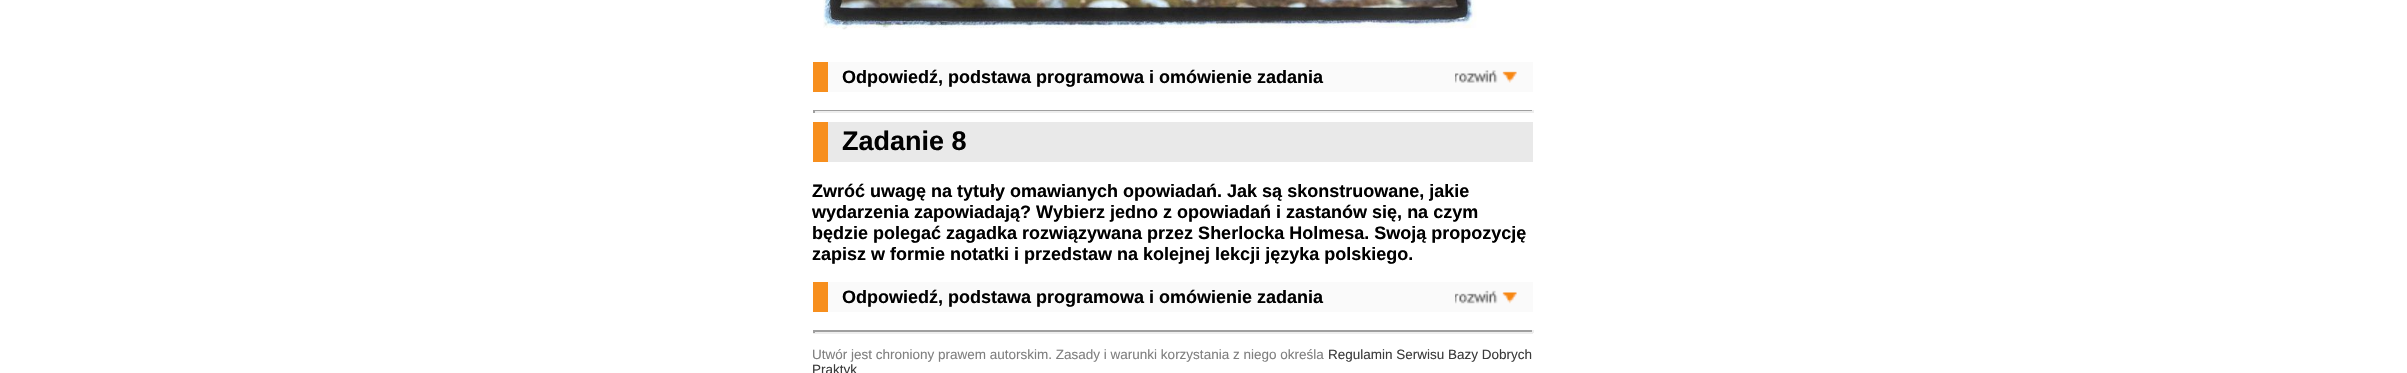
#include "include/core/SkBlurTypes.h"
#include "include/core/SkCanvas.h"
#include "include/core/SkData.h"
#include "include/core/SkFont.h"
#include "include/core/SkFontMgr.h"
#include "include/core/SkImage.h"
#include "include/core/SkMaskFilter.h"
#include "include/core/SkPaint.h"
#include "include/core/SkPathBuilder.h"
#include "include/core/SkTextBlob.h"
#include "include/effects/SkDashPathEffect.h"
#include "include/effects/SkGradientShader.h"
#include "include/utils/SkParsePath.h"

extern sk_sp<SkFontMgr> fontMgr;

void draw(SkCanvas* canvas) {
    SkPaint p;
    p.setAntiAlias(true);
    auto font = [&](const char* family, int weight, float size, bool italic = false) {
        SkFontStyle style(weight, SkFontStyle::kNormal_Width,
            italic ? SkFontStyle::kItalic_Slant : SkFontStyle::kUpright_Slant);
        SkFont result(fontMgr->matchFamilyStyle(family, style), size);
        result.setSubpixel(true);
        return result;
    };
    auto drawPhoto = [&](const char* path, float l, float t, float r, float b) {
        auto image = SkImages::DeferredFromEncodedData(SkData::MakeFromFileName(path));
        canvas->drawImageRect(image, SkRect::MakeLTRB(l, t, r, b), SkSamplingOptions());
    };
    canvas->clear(0xFFFFFFFF);
    drawPhoto("media/1.png", 823, 0, 1477, 30);
    p.setColor(0xFFFAFAFA);
    canvas->drawRect(SkRect::MakeLTRB(828, 62, 1533, 92), p);
    drawPhoto("media/2.png", 1455, 70, 1517, 83);
    p.setColor(0xFFF78F1E);
    canvas->drawRect(SkRect::MakeLTRB(813, 62, 828, 92), p);
    auto font1 = font("Liberation Sans", 700, 18);
    p.setColor(0xFF000000);
    canvas->drawString("Odpowiedź, podstawa programowa i omówienie zadania", 842, 83, font1, p);
    {
        const struct { float l, t, r, b; SkColor color; } items[] = {
            {813, 110, 1533, 111, 0xFF9F9F9F},
            {1532, 110, 1534, 113, 0xFFEEEEEE},
            {813, 111, 1533, 113, 0xFFEEEEEE},
            {813, 110, 815, 113, 0xFF9F9F9F},
            {828, 122, 1533, 162, 0xFFE9E9E9},
            {813, 122, 828, 162, 0xFFF78F1E},
        };
        for (auto [l, t, r, b, color] : items) {
            p.setColor(color);
            canvas->drawRect(SkRect::MakeLTRB(l, t, r, b), p);
        }
    }
    auto font2 = font("Liberation Sans", 700, 27);
    p.setColor(0xFF000000);
    canvas->drawString("Zadanie 8", 842, 150, font2, p);
    {
        const struct { const char* s; float x, y; } items[] = {
            {"Zwróć uwagę na tytuły omawianych opowiadań. Jak są skonstruowane, jakie", 812, 197},
            {"wydarzenia zapowiadają? Wybierz jedno z opowiadań i zastanów się, na czym", 812, 218},
            {"będzie polegać zagadka rozwiązywana przez Sherlocka Holmesa. Swoją propozycję", 812, 239},
            {"zapisz w formie notatki i przedstaw na kolejnej lekcji języka polskiego.", 812, 260},
        };
        for (auto [s, x, y] : items) {
            canvas->drawString(s, x, y, font1, p);
        }
    }
    p.setColor(0xFFFAFAFA);
    canvas->drawRect(SkRect::MakeLTRB(828, 282, 1533, 312), p);
    drawPhoto("media/3.png", 1455, 290, 1517, 304);
    p.setColor(0xFFF78F1E);
    canvas->drawRect(SkRect::MakeLTRB(813, 282, 828, 312), p);
    p.setColor(0xFF000000);
    canvas->drawString("Odpowiedź, podstawa programowa i omówienie zadania", 842, 303, font1, p);
    {
        const struct { float l, t, r, b; SkColor color; } items[] = {
            {813, 330, 1533, 332, 0xFF9F9F9F},
            {1532, 330, 1534, 333, 0xFFEEEEEE},
            {813, 332, 1533, 334, 0xFFEEEEEE},
            {813, 330, 815, 333, 0xFF9F9F9F},
        };
        for (auto [l, t, r, b, color] : items) {
            p.setColor(color);
            canvas->drawRect(SkRect::MakeLTRB(l, t, r, b), p);
        }
    }
    auto font3 = font("Liberation Sans", 400, 13.5f);
    p.setColor(0xFF808080);
    canvas->drawString("Utwór jest chroniony prawem autorskim. Zasady i warunki korzystania z niego określa", 812, 359, font3, p);
    p.setColor(0xFF3C3C3C);
    canvas->drawString("Regulamin Serwisu Bazy Dobrych", 1328, 359, font3, p);
    canvas->drawString("Praktyk", 812, 374, font3, p);
}
